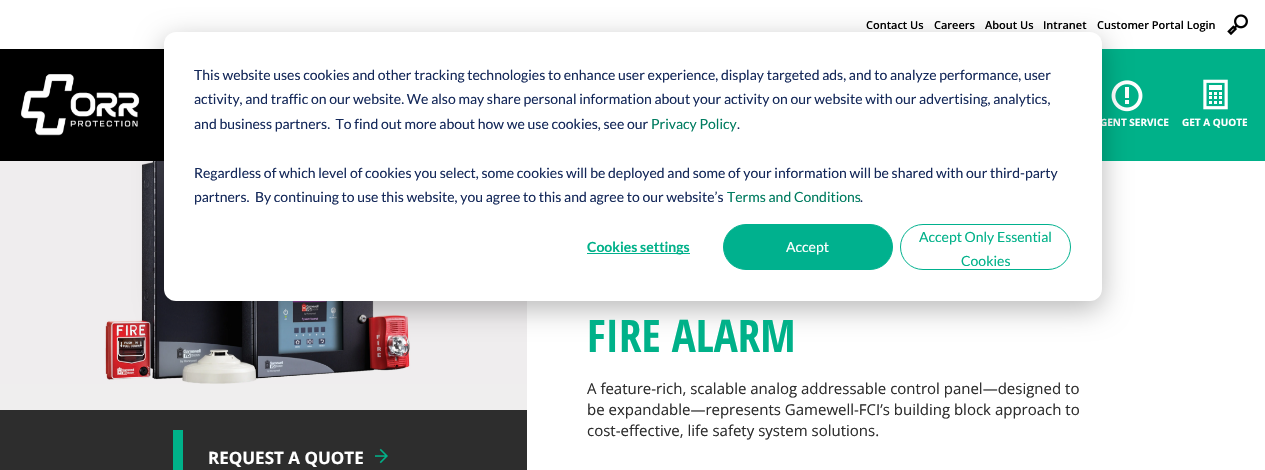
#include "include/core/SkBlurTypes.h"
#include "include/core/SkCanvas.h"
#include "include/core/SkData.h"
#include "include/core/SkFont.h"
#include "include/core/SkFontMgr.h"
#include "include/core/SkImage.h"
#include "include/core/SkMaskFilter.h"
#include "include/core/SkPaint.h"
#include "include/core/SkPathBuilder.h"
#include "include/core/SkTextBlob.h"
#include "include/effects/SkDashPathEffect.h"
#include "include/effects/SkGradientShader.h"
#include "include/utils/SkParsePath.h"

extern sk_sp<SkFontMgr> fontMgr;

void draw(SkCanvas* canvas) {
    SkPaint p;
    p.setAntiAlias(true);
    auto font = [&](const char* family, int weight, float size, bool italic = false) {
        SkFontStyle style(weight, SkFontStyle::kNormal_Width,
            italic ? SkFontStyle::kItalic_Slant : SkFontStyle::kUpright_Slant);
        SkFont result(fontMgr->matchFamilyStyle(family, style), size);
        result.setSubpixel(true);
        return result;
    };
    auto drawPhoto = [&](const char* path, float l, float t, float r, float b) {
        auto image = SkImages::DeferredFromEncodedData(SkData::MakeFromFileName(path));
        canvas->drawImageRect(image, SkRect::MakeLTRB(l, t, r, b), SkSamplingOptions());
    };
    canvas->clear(0xFFFFFFFF);
    auto font1 = font("Open Sans", 600, 11);
    p.setColor(0xFF000000);
    {
        const struct { const char* s; float x, y; } items[] = {
            {"Contact Us", 866, 29},
            {"Careers", 934, 29},
            {"About Us", 985, 29},
            {"Intranet", 1043, 29},
            {"Customer Portal Login", 1097, 29},
        };
        for (auto [s, x, y] : items) {
            canvas->drawString(s, x, y, font1, p);
        }
    }
    drawPhoto("media/1.png", 1227, 14, 1248, 36);
    canvas->drawRect(SkRect::MakeLTRB(0, 49, 164, 161), p);
    drawPhoto("media/2.png", 21, 74, 140, 136);
    p.setColor(0xFF00B189);
    canvas->drawRect(SkRect::MakeLTRB(1102, 49, 1265, 161), p);
    drawPhoto("media/3.png", 1111, 80, 1143, 112);
    auto font2 = font("Open Sans", 700, 10);
    p.setColor(0xFFFFFFFF);
    canvas->drawString("GENT SERVICE", 1100, 126, font2, p);
    drawPhoto("media/4.png", 1203, 79, 1228, 110);
    canvas->drawString("GET A QUOTE", 1182, 126, font2, p);
    drawPhoto("media/5.png", 0, 161, 527, 384);
    p.setColor(0x47000000);
    p.setMaskFilter(SkMaskFilter::MakeBlur(kNormal_SkBlurStyle, 14));
    canvas->drawRoundRect(SkRect::MakeLTRB(164, 40, 1102, 309), 12, 12, p);
    p.setMaskFilter(nullptr);
    p.setColor(0xFFFFFFFF);
    canvas->drawRoundRect(SkRect::MakeLTRB(164, 32, 1102, 301), 12, 12, p);
    auto font3 = font("Lato", 400, 14);
    p.setColor(0xFF15295A);
    {
        const struct { const char* s; float x, y; } items[] = {
            {"This website uses cookies and other tracking technologies to enhance user experience, display targeted ads, and to analyze performance, user", 194, 80},
            {"activity, and traffic on our website. We also may share personal information about your activity on our website with our advertising, analytics,", 194, 104},
            {"and business partners.  To find out more about how we use cookies, see our", 194, 129},
        };
        for (auto [s, x, y] : items) {
            canvas->drawString(s, x, y, font3, p);
        }
    }
    p.setColor(0xFF007C60);
    canvas->drawString("Privacy Policy", 651, 129, font3, p);
    p.setColor(0xFF15295A);
    {
        const struct { const char* s; float x, y; } items[] = {
            {".", 737, 129},
            {"Regardless of which level of cookies you select, some cookies will be deployed and some of your information will be shared with our third-party", 194, 178},
            {"partners.  By continuing to use this website, you agree to this and agree to our website’s", 194, 202},
        };
        for (auto [s, x, y] : items) {
            canvas->drawString(s, x, y, font3, p);
        }
    }
    p.setColor(0xFF007C60);
    canvas->drawString("Terms and Conditions", 727, 202, font3, p);
    p.setColor(0xFF15295A);
    canvas->drawString(".", 860, 202, font3, p);
    p.setColor(0xFF00B18E);
    canvas->drawRect(SkRect::MakeLTRB(587, 253, 690, 254), p);
    auto font4 = font("Lato", 700, 14);
    p.setColor(0xFF00B189);
    canvas->drawString("Cookies settings", 587, 252, font4, p);
    p.setColor(0xFF00B18E);
    canvas->drawRoundRect(SkRect::MakeLTRB(723.5f, 224.5f, 892.5f, 269.5f), 22.5f, 22.5f, p);
    p.setStyle(SkPaint::kStroke_Style);
    p.setStrokeWidth(1);
    canvas->drawRoundRect(SkRect::MakeLTRB(723.5f, 224.5f, 892.5f, 269.5f), 22.5f, 22.5f, p);
    p.setStyle(SkPaint::kFill_Style);
    p.setColor(0xFFFFFFFF);
    canvas->drawString("Accept", 786, 252, font3, p);
    p.setStyle(SkPaint::kStroke_Style);
    p.setColor(0xFF00B18E);
    canvas->drawRoundRect(SkRect::MakeLTRB(900.5f, 224.5f, 1070.5f, 269.5f), 22.5f, 22.5f, p);
    p.setStyle(SkPaint::kFill_Style);
    p.setColor(0xFF00B189);
    canvas->drawString("Accept Only Essential", 919, 242, font3, p);
    canvas->drawString("Cookies", 961, 266, font3, p);
    p.setColor(0xFFEFEEEE);
    canvas->drawRect(SkRect::MakeLTRB(0, 384, 527, 410), p);
    auto font5 = font("Open Sans Condensed", 700, 45);
    p.setColor(0xFF00B189);
    canvas->drawString("FIRE ALARM", 587, 352, font5, p);
    auto font6 = font("Open Sans", 400, 15);
    p.setColor(0xFF2D2D2D);
    {
        const struct { const char* s; float x, y; } items[] = {
            {"A feature-rich, scalable analog addressable control panel—designed to", 587, 394},
            {"be expandable—represents Gamewell-FCI’s building block approach to", 587, 415},
            {"cost-effective, life safety system solutions.", 587, 436},
        };
        for (auto [s, x, y] : items) {
            canvas->drawString(s, x, y, font6, p);
        }
    }
    canvas->drawRect(SkRect::MakeLTRB(0, 410, 527, 470), p);
    p.setColor(0xFF00B189);
    canvas->drawRect(SkRect::MakeLTRB(173, 430, 183, 470), p);
    auto font7 = font("Open Sans", 700, 17);
    p.setColor(0xFFFFFFFF);
    canvas->drawString("REQUEST A QUOTE", 208, 464, font7, p);
    drawPhoto("media/6.png", 375, 448, 388, 464);
}
